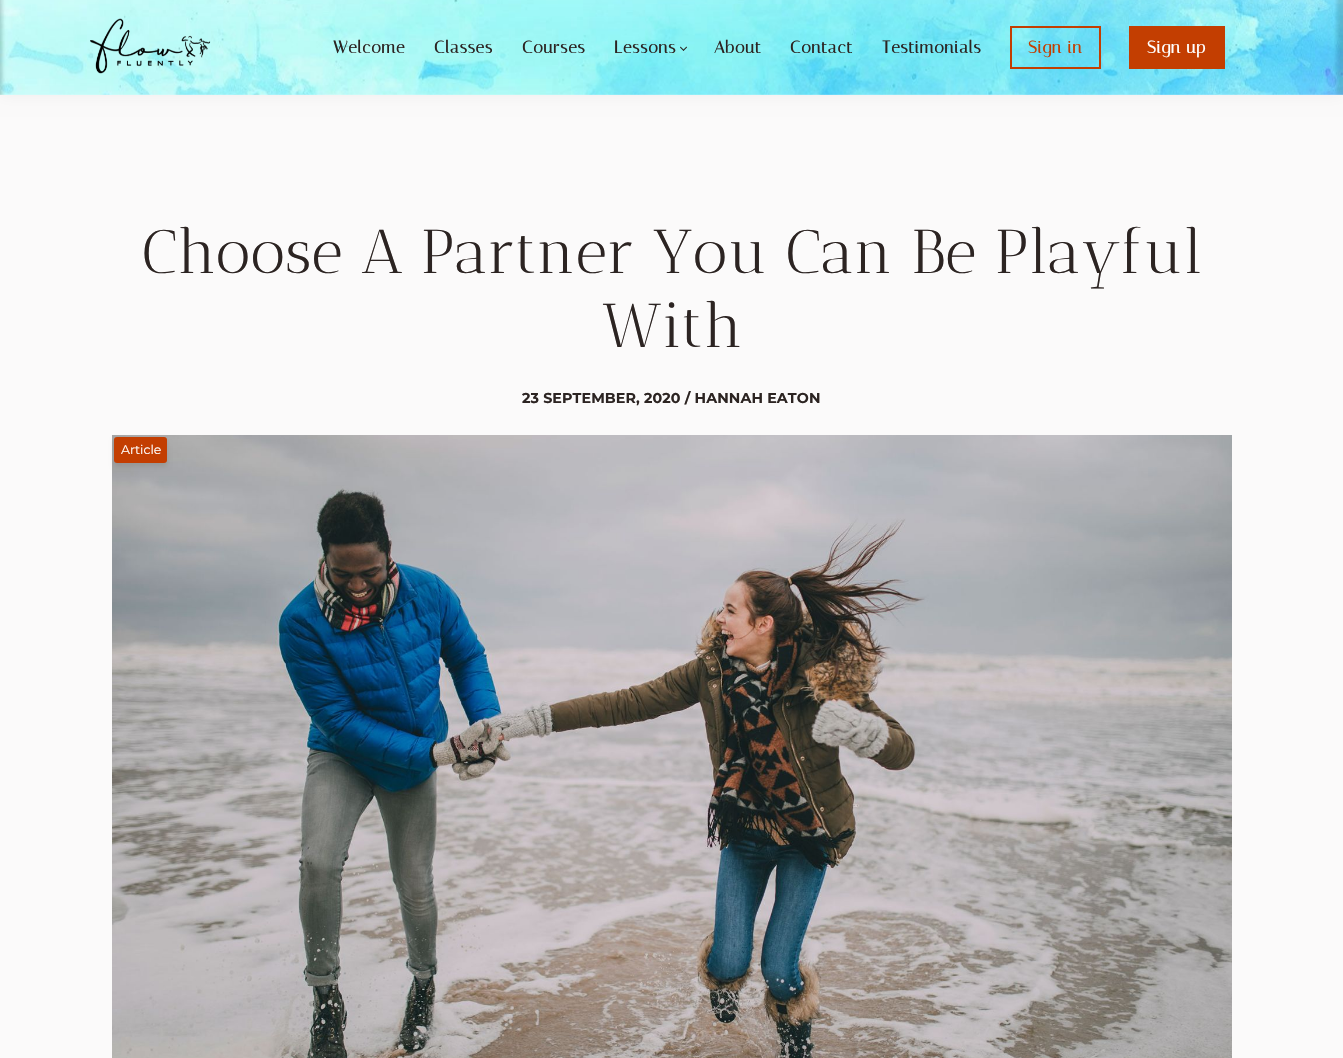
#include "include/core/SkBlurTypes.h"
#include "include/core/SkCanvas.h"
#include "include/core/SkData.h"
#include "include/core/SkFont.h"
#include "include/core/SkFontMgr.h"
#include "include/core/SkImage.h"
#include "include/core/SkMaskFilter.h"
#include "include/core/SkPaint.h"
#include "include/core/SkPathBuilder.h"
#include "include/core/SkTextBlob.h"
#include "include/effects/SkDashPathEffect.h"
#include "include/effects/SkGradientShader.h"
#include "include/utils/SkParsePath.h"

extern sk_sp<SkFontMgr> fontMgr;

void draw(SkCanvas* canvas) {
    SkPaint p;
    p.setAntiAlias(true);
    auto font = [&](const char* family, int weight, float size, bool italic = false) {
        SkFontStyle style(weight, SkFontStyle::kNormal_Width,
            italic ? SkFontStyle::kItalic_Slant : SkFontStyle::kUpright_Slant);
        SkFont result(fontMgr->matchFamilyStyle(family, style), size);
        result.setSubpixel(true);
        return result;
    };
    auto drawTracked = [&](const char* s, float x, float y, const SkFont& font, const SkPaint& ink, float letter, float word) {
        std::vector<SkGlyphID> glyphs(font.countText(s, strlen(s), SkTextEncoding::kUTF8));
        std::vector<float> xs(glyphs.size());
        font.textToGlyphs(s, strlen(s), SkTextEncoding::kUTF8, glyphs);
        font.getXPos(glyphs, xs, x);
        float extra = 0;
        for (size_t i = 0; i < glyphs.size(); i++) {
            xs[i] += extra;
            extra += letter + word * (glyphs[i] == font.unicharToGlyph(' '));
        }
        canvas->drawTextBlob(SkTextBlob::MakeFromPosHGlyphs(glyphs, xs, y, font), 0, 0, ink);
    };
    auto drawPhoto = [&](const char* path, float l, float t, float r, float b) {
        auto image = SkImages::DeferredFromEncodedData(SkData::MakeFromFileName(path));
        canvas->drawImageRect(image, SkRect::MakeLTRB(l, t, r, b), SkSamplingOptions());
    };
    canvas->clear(0xFFFFFFFF);
    p.setColor(0xFFFBFAFA);
    canvas->drawRect(SkRect::MakeLTRB(0, 95, 1343, 1058), p);
    p.setColor(0x0D000000);
    p.setMaskFilter(SkMaskFilter::MakeBlur(kNormal_SkBlurStyle, 7.5f));
    canvas->drawRect(SkRect::MakeLTRB(0, 0, 1343, 95), p);
    p.setMaskFilter(nullptr);
    drawPhoto("media/1.png", 0, 0, 1343, 95);
    drawPhoto("media/2.png", 0, 10, 1343, 85);
    drawPhoto("media/3.png", 90, 18, 211, 74);
    auto font1 = font("Italiana", 700, 17);
    p.setColor(0xFF2C2422);
    {
        const struct { const char* s; float x, y; } items[] = {
            {"Welcome", 333, 53},
            {"Classes", 434, 53},
            {"Courses", 522, 53},
            {"Lessons", 614, 53},
        };
        for (auto [s, x, y] : items) {
            drawTracked(s, x, y, font1, p, 0.8f, 0);
        }
    }
    p.setColor(0xFF282221);
    canvas->drawPath(SkPathBuilder().moveTo(687, 47.5f).lineTo(683.5f, 51).lineTo(683, 50).lineTo(686.5f, 46.5f).close().detach(), p);
    canvas->drawPath(SkPathBuilder().moveTo(684, 50).lineTo(683.5f, 51).lineTo(680, 47.5f).lineTo(680.5f, 46.5f).close().detach(), p);
    p.setColor(0xFF2C2422);
    {
        const struct { const char* s; float x, y; } items[] = {
            {"About", 714, 53},
            {"Contact", 790, 53},
            {"Testimonials", 882, 53},
        };
        for (auto [s, x, y] : items) {
            drawTracked(s, x, y, font1, p, 0.8f, 0);
        }
    }
    p.setStyle(SkPaint::kStroke_Style);
    p.setStrokeWidth(2);
    p.setColor(0xFFC33E01);
    canvas->drawRect(SkRect::MakeLTRB(1011, 27, 1100, 68), p);
    p.setStyle(SkPaint::kFill_Style);
    drawTracked("Sign in", 1028, 53, font1, p, 0.8f, 0);
    canvas->drawRect(SkRect::MakeLTRB(1129, 26, 1225, 69), p);
    p.setColor(0xFFFFFFFF);
    drawTracked("Sign up", 1147, 53, font1, p, 0.8f, 0);
    auto font2 = font("Antic Didone", 400, 61.75f);
    p.setColor(0xFF2C2422);
    canvas->drawString("Choose A Partner You Can Be Playful", 142, 273, font2, p);
    canvas->drawString("With", 602, 347, font2, p);
    auto font3 = font("Montserrat", 700, 14.25f);
    drawTracked("23 SEPTEMBER, 2020 / HANNAH EATON", 522, 403, font3, p, 0.1f, 0);
    drawPhoto("media/4.png", 112, 435, 1232, 1058);
    p.setColor(0x1A000000);
    p.setMaskFilter(SkMaskFilter::MakeBlur(kNormal_SkBlurStyle, 2.5f));
    canvas->drawRoundRect(SkRect::MakeLTRB(114, 440, 167, 466), 3, 3, p);
    p.setMaskFilter(nullptr);
    p.setColor(0xFFC33E01);
    canvas->drawRoundRect(SkRect::MakeLTRB(114, 437, 167, 463), 3, 3, p);
    auto font4 = font("Montserrat", 400, 12.5f);
    p.setColor(0xFFFFFFFF);
    canvas->drawString("Article", 121, 454, font4, p);
}
